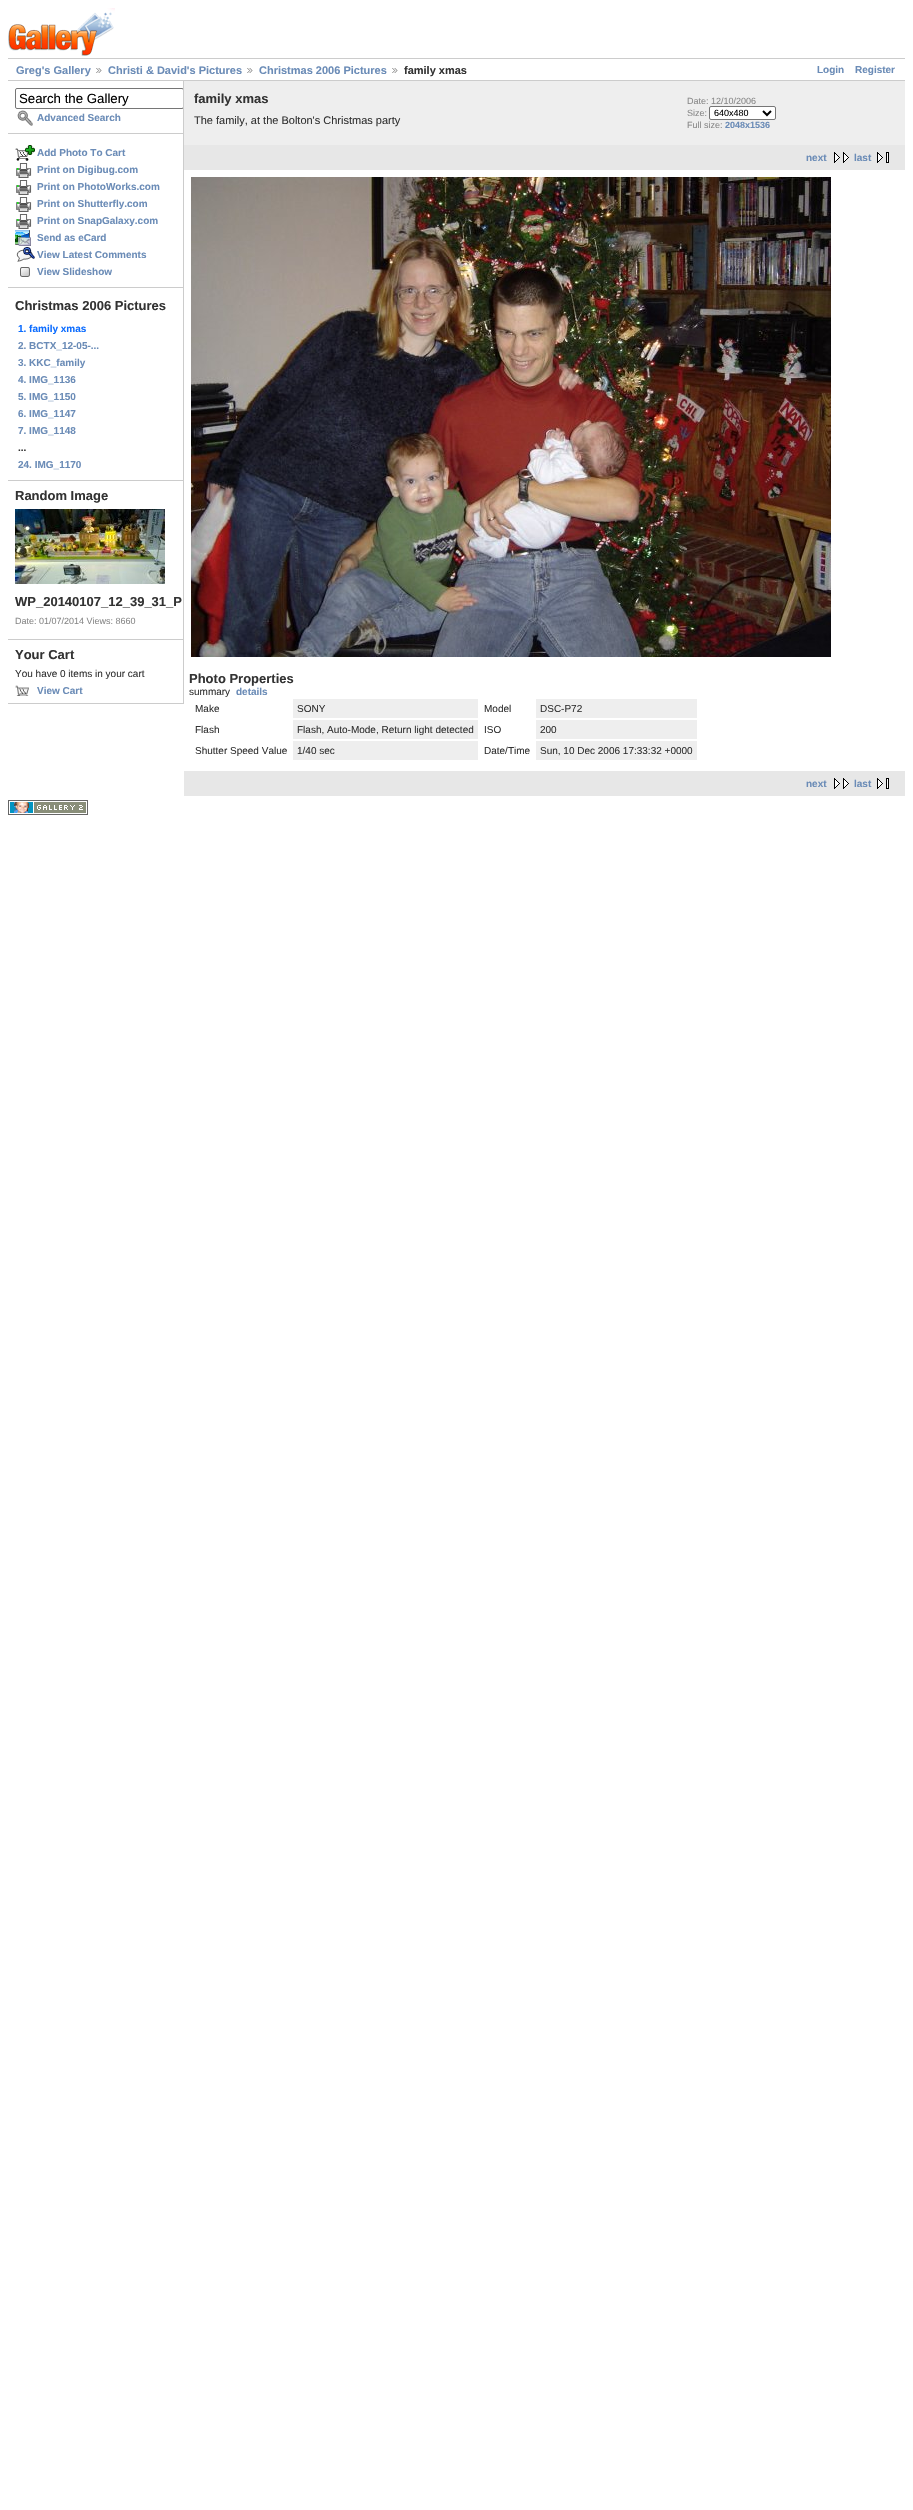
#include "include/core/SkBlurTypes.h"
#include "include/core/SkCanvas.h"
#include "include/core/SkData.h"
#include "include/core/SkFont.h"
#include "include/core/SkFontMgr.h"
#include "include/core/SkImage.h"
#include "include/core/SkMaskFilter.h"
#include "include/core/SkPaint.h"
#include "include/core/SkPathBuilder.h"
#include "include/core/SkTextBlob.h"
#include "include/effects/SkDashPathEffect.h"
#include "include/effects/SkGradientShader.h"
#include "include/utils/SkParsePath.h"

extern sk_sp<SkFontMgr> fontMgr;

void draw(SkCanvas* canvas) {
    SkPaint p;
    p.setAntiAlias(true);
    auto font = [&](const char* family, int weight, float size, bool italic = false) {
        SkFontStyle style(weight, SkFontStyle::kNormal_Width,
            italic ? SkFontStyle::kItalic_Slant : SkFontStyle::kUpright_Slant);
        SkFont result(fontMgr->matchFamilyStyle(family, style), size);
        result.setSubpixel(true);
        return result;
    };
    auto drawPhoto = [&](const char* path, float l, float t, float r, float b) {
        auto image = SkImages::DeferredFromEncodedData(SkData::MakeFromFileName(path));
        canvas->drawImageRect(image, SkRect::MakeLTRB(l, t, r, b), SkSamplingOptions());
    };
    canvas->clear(0xFFFFFFFF);
    drawPhoto("media/1.png", 8, 8, 115, 56);
    p.setColor(0xFFCCCCCC);
    canvas->drawRect(SkRect::MakeLTRB(8, 58, 905, 59), p);
    canvas->drawRect(SkRect::MakeLTRB(8, 80, 905, 81), p);
    auto font1 = font("Liberation Sans", 700, 11);
    p.setColor(0xFF6B8CB7);
    canvas->drawString("Greg's Gallery", 16, 74, font1, p);
    drawPhoto("media/2.png", 96, 68, 102, 73);
    canvas->drawString("Christi & David's Pictures", 108, 74, font1, p);
    drawPhoto("media/2.png", 247, 68, 253, 73);
    canvas->drawString("Christmas 2006 Pictures", 259, 74, font1, p);
    drawPhoto("media/2.png", 392, 68, 398, 73);
    p.setColor(0xFF333333);
    canvas->drawString("family xmas", 404, 74, font1, p);
    auto font2 = font("Liberation Sans", 700, 10);
    p.setColor(0xFF6B8CB7);
    canvas->drawString("Login", 817, 73, font2, p);
    canvas->drawString("Register", 855, 73, font2, p);
    p.setColor(0xFFCCCCCC);
    canvas->drawRect(SkRect::MakeLTRB(183, 81, 184, 704), p);
    canvas->drawRect(SkRect::MakeLTRB(8, 133, 183, 134), p);
    canvas->save();
    canvas->clipRect(SkRect::MakeLTRB(8, 81, 183, 704));
    p.setStyle(SkPaint::kStroke_Style);
    p.setStrokeWidth(1);
    p.setColor(0xFF767676);
    canvas->drawRoundRect(SkRect::MakeLTRB(15.5f, 88.5f, 183.5f, 108.5f), 1.5f, 1.5f, p);
    canvas->restore();
    auto font3 = font("Liberation Sans", 400, 13.25f);
    p.setStyle(SkPaint::kFill_Style);
    p.setColor(0xFF000000);
    canvas->drawString("Search the Gallery", 19, 103, font3, p);
    drawPhoto("media/3.png", 17, 110, 33, 126);
    p.setColor(0xFF6B8CB7);
    canvas->drawString("Advanced Search", 37, 121, font2, p);
    p.setColor(0xFFCCCCCC);
    canvas->drawRect(SkRect::MakeLTRB(8, 287, 183, 288), p);
    drawPhoto("media/4.png", 15, 145, 35, 161);
    p.setColor(0xFF6B8CB7);
    canvas->drawString("Add Photo To Cart", 37, 156, font2, p);
    drawPhoto("media/5.png", 16, 163, 32, 178);
    canvas->drawString("Print on Digibug.com", 37, 173, font2, p);
    drawPhoto("media/5.png", 16, 180, 32, 195);
    canvas->drawString("Print on PhotoWorks.com", 37, 190, font2, p);
    drawPhoto("media/5.png", 16, 197, 32, 212);
    canvas->drawString("Print on Shutterfly.com", 37, 207, font2, p);
    drawPhoto("media/5.png", 16, 214, 32, 229);
    canvas->drawString("Print on SnapGalaxy.com", 37, 224, font2, p);
    drawPhoto("media/6.png", 15, 230, 31, 246);
    canvas->drawString("Send as eCard", 37, 241, font2, p);
    drawPhoto("media/7.png", 16, 247, 35, 262);
    canvas->drawString("View Latest Comments", 37, 258, font2, p);
    drawPhoto("media/8.png", 20, 267, 30, 277);
    canvas->drawString("View Slideshow", 37, 275, font2, p);
    p.setColor(0xFFCCCCCC);
    canvas->drawRect(SkRect::MakeLTRB(8, 480, 183, 481), p);
    auto font4 = font("Liberation Sans", 700, 13);
    p.setColor(0xFF333333);
    canvas->drawString("Christmas 2006 Pictures", 15, 310, font4, p);
    p.setColor(0xFF0B6CFF);
    canvas->drawString("1. family xmas", 18, 332, font2, p);
    p.setColor(0xFF6B8CB7);
    {
        const struct { const char* s; float x, y; } items[] = {
            {"2. BCTX_12-05-...", 18, 349},
            {"3. KKC_family", 18, 366},
            {"4. IMG_1136", 18, 383},
            {"5. IMG_1150", 18, 400},
            {"6. IMG_1147", 18, 417},
            {"7. IMG_1148", 18, 434},
        };
        for (auto [s, x, y] : items) {
            canvas->drawString(s, x, y, font2, p);
        }
    }
    p.setColor(0xFF333333);
    canvas->drawString("...", 18, 451, font2, p);
    p.setColor(0xFF6B8CB7);
    canvas->drawString("24. IMG_1170", 18, 468, font2, p);
    p.setColor(0xFFCCCCCC);
    canvas->drawRect(SkRect::MakeLTRB(8, 639, 183, 640), p);
    p.setColor(0xFF333333);
    canvas->drawString("Random Image", 15, 500, font4, p);
    drawPhoto("media/9.png", 15, 509, 165, 584);
    canvas->drawString("WP_20140107_12_39_31_P", 15, 606, font4, p);
    auto font5 = font("Liberation Sans", 400, 9);
    p.setColor(0xFF888888);
    canvas->drawString("Date: 01/07/2014 Views: 8660", 15, 624, font5, p);
    p.setColor(0xFFCCCCCC);
    canvas->drawRect(SkRect::MakeLTRB(8, 703, 183, 704), p);
    p.setColor(0xFF333333);
    canvas->drawString("Your Cart", 15, 659, font4, p);
    auto font6 = font("Liberation Sans", 400, 10);
    canvas->drawString("You have 0 items in your cart", 15, 677, font6, p);
    drawPhoto("media/10.png", 15, 685, 29, 696);
    p.setColor(0xFF6B8CB7);
    canvas->drawString("View Cart", 37, 694, font2, p);
    p.setColor(0xFFEEEEEE);
    canvas->drawRect(SkRect::MakeLTRB(184, 81, 905, 145), p);
    p.setColor(0xFF333333);
    canvas->drawString("family xmas", 194, 103, font4, p);
    auto font7 = font("Liberation Sans", 400, 11);
    canvas->drawString("The family, at the Bolton's Christmas party", 194, 124, font7, p);
    p.setColor(0xFF888888);
    canvas->drawString("Date: 12/10/2006", 687, 104, font5, p);
    canvas->drawString("Size:", 687, 116, font5, p);
    p.setColor(0xFFFFFFFF);
    canvas->drawRoundRect(SkRect::MakeLTRB(709.5f, 106.5f, 775.5f, 119.5f), 1.5f, 1.5f, p);
    p.setStyle(SkPaint::kStroke_Style);
    p.setColor(0xFF767676);
    canvas->drawRoundRect(SkRect::MakeLTRB(709.5f, 106.5f, 775.5f, 119.5f), 1.5f, 1.5f, p);
    p.setStrokeWidth(2);
    p.setColor(0xFF000000);
    canvas->drawPath(SkPathBuilder().moveTo(763, 111).lineTo(767, 115).lineTo(771, 111).detach(), p);
    p.setStyle(SkPaint::kFill_Style);
    canvas->drawString("640x480", 714, 116, font5, p);
    p.setColor(0xFF888888);
    canvas->drawString("Full size:", 687, 128, font5, p);
    auto font8 = font("Liberation Sans", 700, 9);
    p.setColor(0xFF6B8CB7);
    canvas->drawString("2048x1536", 725, 128, font8, p);
    p.setColor(0xFFE7E7E7);
    canvas->drawRect(SkRect::MakeLTRB(184, 145, 905, 170), p);
    p.setColor(0xFF6B8CB7);
    canvas->drawString("next", 806, 161, font2, p);
    drawPhoto("media/11.png", 834, 152, 849, 163);
    canvas->drawString("last", 854, 161, font2, p);
    drawPhoto("media/12.png", 877, 152, 889, 163);
    drawPhoto("media/13.png", 191, 177, 831, 657);
    p.setColor(0xFF333333);
    canvas->drawString("Photo Properties", 189, 683, font4, p);
    canvas->drawString("summary", 189, 695, font6, p);
    p.setColor(0xFF6B8CB7);
    canvas->drawString("details", 236, 695, font2, p);
    p.setColor(0xFF333333);
    canvas->drawString("Make", 195, 712, font6, p);
    p.setColor(0xFFEEEEEE);
    canvas->drawRect(SkRect::MakeLTRB(293, 699, 478, 718), p);
    p.setColor(0xFF333333);
    canvas->drawString("SONY", 297, 712, font6, p);
    canvas->drawString("Model", 484, 712, font6, p);
    p.setColor(0xFFEEEEEE);
    canvas->drawRect(SkRect::MakeLTRB(536, 699, 697, 718), p);
    p.setColor(0xFF333333);
    canvas->drawString("DSC-P72", 540, 712, font6, p);
    canvas->drawString("Flash", 195, 733, font6, p);
    p.setColor(0xFFEEEEEE);
    canvas->drawRect(SkRect::MakeLTRB(293, 720, 478, 739), p);
    p.setColor(0xFF333333);
    canvas->drawString("Flash, Auto-Mode, Return light detected", 297, 733, font6, p);
    canvas->drawString("ISO", 484, 733, font6, p);
    p.setColor(0xFFEEEEEE);
    canvas->drawRect(SkRect::MakeLTRB(536, 720, 697, 739), p);
    p.setColor(0xFF333333);
    canvas->drawString("200", 540, 733, font6, p);
    canvas->drawString("Shutter Speed Value", 195, 754, font6, p);
    p.setColor(0xFFEEEEEE);
    canvas->drawRect(SkRect::MakeLTRB(293, 741, 478, 760), p);
    p.setColor(0xFF333333);
    canvas->drawString("1/40 sec", 297, 754, font6, p);
    canvas->drawString("Date/Time", 484, 754, font6, p);
    p.setColor(0xFFEEEEEE);
    canvas->drawRect(SkRect::MakeLTRB(536, 741, 697, 760), p);
    p.setColor(0xFF333333);
    canvas->drawString("Sun, 10 Dec 2006 17:33:32 +0000", 540, 754, font6, p);
    p.setColor(0xFFE7E7E7);
    canvas->drawRect(SkRect::MakeLTRB(184, 771, 905, 796), p);
    p.setColor(0xFF6B8CB7);
    canvas->drawString("next", 806, 787, font2, p);
    drawPhoto("media/11.png", 834, 778, 849, 789);
    canvas->drawString("last", 854, 787, font2, p);
    drawPhoto("media/12.png", 877, 778, 889, 789);
    drawPhoto("media/14.png", 8, 800, 88, 815);
}
